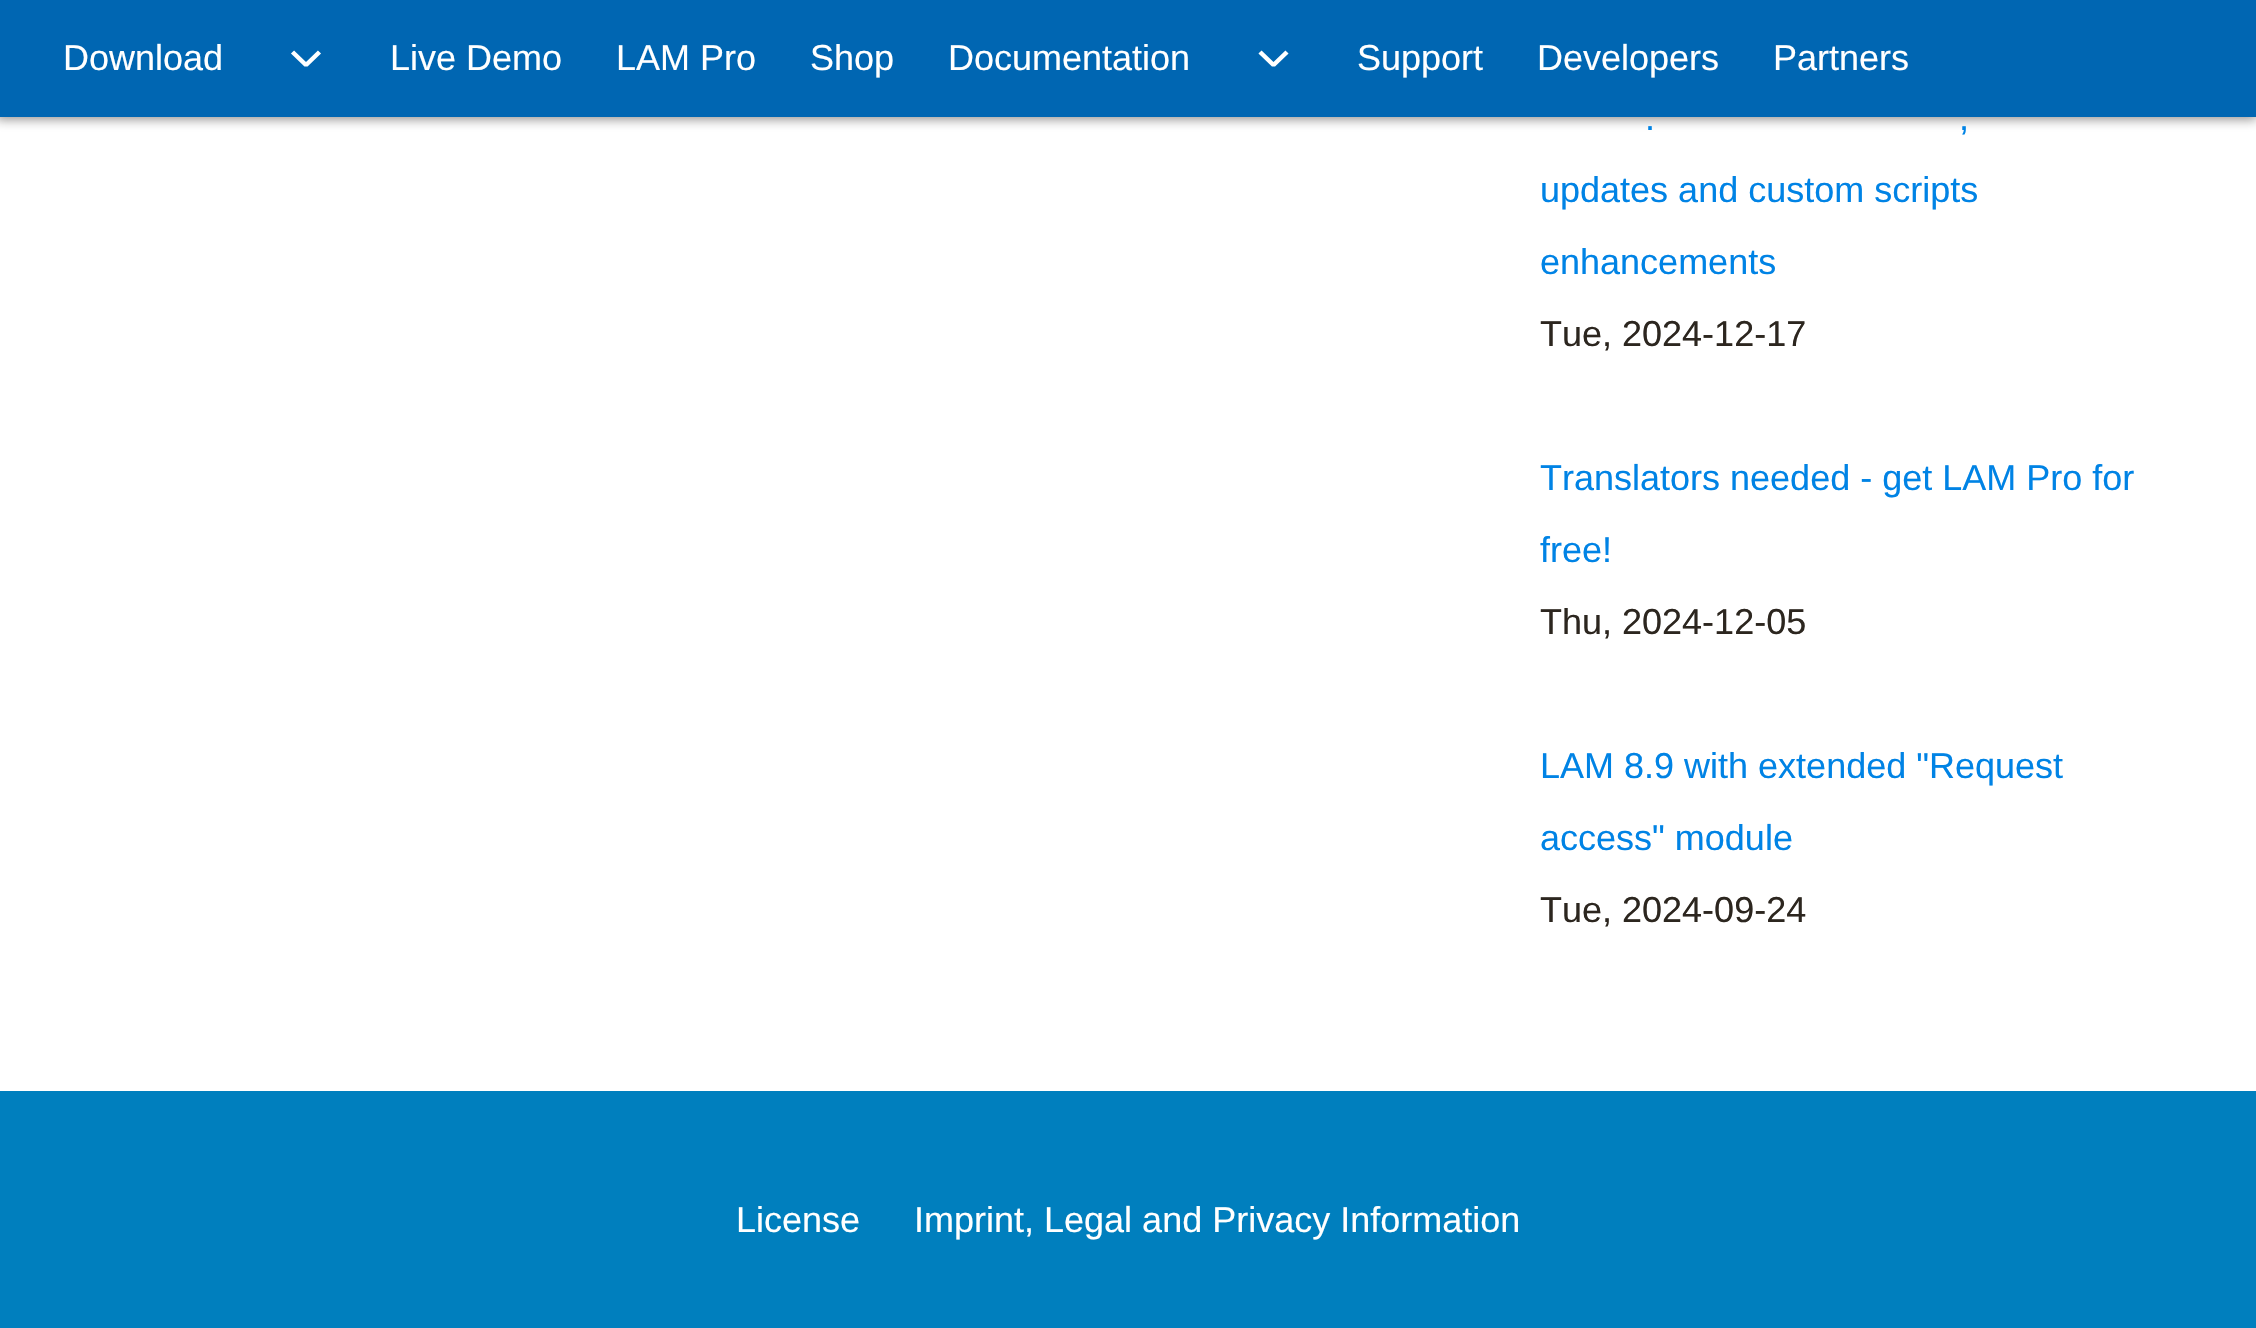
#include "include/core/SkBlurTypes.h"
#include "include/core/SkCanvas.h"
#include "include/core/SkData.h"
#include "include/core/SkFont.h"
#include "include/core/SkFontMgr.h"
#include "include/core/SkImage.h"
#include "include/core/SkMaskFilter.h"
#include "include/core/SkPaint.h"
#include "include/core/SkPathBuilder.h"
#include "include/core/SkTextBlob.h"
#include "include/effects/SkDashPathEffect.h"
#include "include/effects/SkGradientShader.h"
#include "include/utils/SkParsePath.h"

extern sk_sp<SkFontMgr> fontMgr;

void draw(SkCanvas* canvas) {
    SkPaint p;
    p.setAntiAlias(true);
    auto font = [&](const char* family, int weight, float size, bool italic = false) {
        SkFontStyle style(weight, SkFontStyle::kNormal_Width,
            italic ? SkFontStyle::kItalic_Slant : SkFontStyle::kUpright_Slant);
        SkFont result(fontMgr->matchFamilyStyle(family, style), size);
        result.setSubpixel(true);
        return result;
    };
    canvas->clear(0xFFFFFFFF);
    p.setColor(0x80181411);
    p.setMaskFilter(SkMaskFilter::MakeBlur(kNormal_SkBlurStyle, 5.5f));
    canvas->drawRect(SkRect::MakeLTRB(-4, -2, 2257, 119), p);
    p.setMaskFilter(nullptr);
    p.setColor(0xFF0066B2);
    canvas->drawRect(SkRect::MakeLTRB(0, 0, 2256, 117), p);
    auto font1 = font("Liberation Sans", 400, 36);
    p.setColor(0xFFFFFFFF);
    canvas->drawString("Download", 63, 70, font1, p);
    p.setStyle(SkPaint::kStroke_Style);
    p.setStrokeWidth(4.5f);
    p.setStrokeJoin(SkPaint::kBevel_Join);
    canvas->drawPath(SkPathBuilder().moveTo(292.5f, 52).lineTo(306, 65).lineTo(319.5f, 52).detach(), p);
    p.setStyle(SkPaint::kFill_Style);
    {
        const struct { const char* s; float x, y; } items[] = {
            {"Live Demo", 390, 70},
            {"LAM Pro", 616, 70},
            {"Shop", 810, 70},
            {"Documentation", 948, 70},
        };
        for (auto [s, x, y] : items) {
            canvas->drawString(s, x, y, font1, p);
        }
    }
    p.setStyle(SkPaint::kStroke_Style);
    canvas->drawPath(SkPathBuilder().moveTo(1260, 52).lineTo(1273.5f, 65).lineTo(1287, 52).detach(), p);
    p.setStyle(SkPaint::kFill_Style);
    {
        const struct { const char* s; float x, y; } items[] = {
            {"Support", 1357, 70},
            {"Developers", 1537, 70},
            {"Partners", 1773, 70},
        };
        for (auto [s, x, y] : items) {
            canvas->drawString(s, x, y, font1, p);
        }
    }
    p.setColor(0xFF0083E5);
    {
        const struct { const char* s; float x, y; } items[] = {
            {".", 1645, 130},
            {",", 1959, 130},
            {"updates and custom scripts", 1540, 202},
            {"enhancements", 1540, 274},
        };
        for (auto [s, x, y] : items) {
            canvas->drawString(s, x, y, font1, p);
        }
    }
    p.setColor(0xFF2C261F);
    canvas->drawString("Tue, 2024-12-17", 1540, 346, font1, p);
    p.setColor(0xFF0083E5);
    canvas->drawString("Translators needed - get LAM Pro for", 1540, 490, font1, p);
    canvas->drawString("free!", 1540, 562, font1, p);
    p.setColor(0xFF2C261F);
    canvas->drawString("Thu, 2024-12-05", 1540, 634, font1, p);
    p.setColor(0xFF0083E5);
    canvas->drawString("LAM 8.9 with extended \"Request", 1540, 778, font1, p);
    canvas->drawString("access\" module", 1540, 850, font1, p);
    p.setColor(0xFF2C261F);
    canvas->drawString("Tue, 2024-09-24", 1540, 922, font1, p);
    p.setColor(0xFF007FBE);
    canvas->drawRect(SkRect::MakeLTRB(0, 1091, 2256, 1328), p);
    p.setColor(0xFFFFFFFF);
    canvas->drawString("License", 736, 1232, font1, p);
    canvas->drawString("Imprint, Legal and Privacy Information", 914, 1232, font1, p);
}
